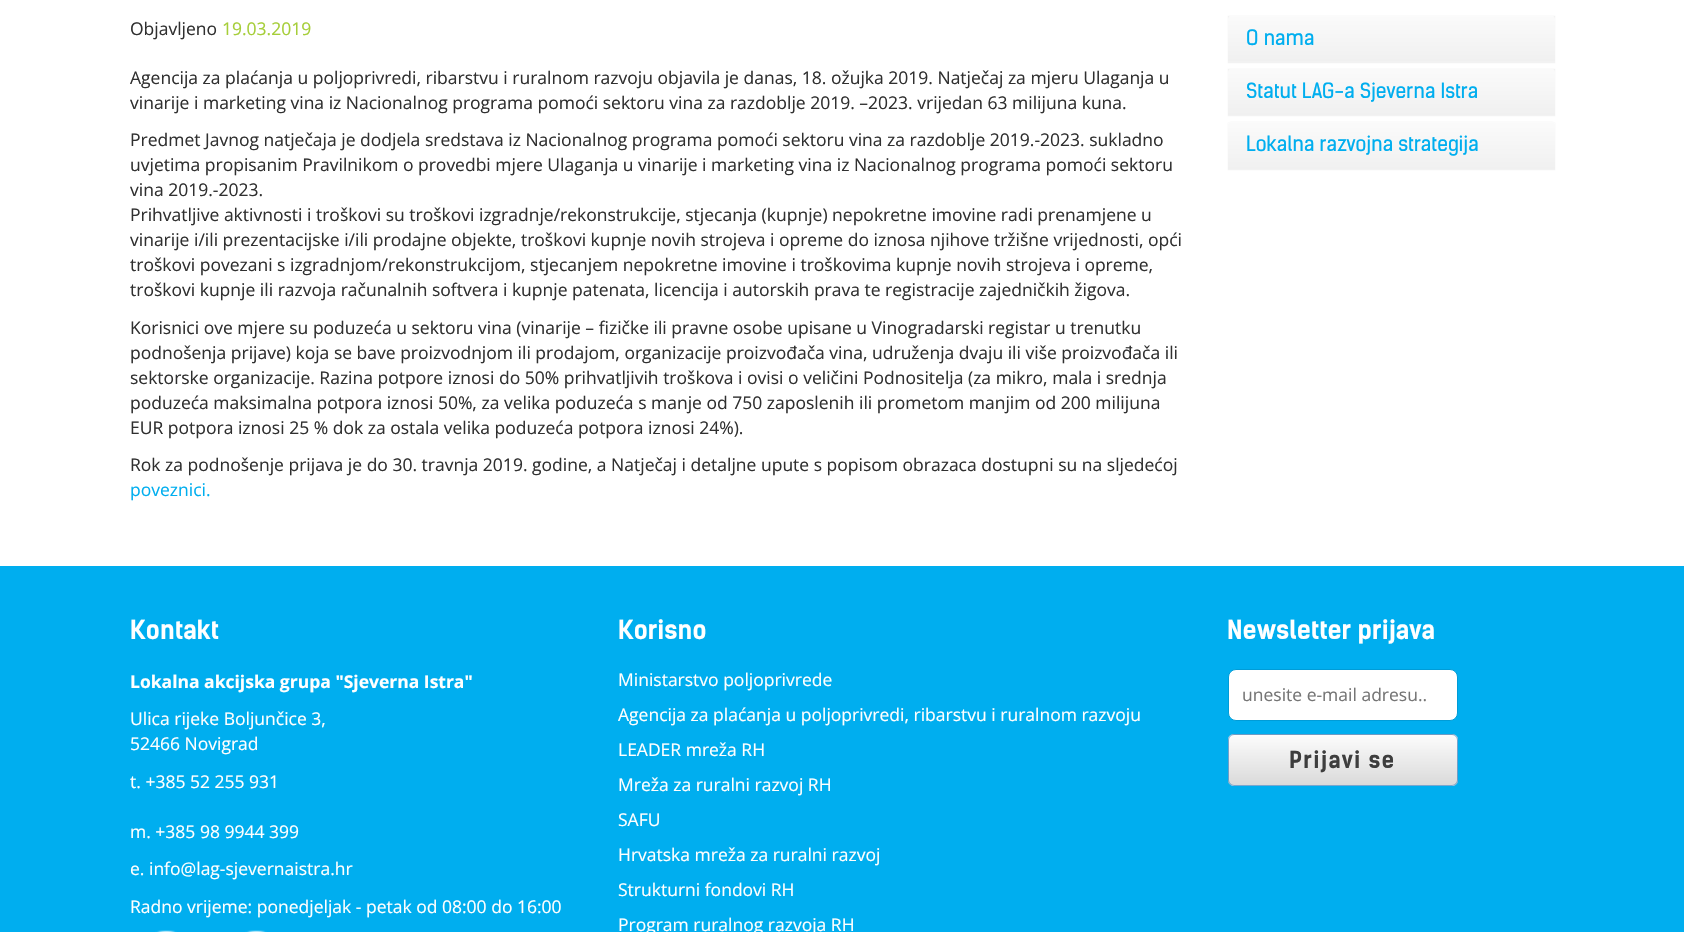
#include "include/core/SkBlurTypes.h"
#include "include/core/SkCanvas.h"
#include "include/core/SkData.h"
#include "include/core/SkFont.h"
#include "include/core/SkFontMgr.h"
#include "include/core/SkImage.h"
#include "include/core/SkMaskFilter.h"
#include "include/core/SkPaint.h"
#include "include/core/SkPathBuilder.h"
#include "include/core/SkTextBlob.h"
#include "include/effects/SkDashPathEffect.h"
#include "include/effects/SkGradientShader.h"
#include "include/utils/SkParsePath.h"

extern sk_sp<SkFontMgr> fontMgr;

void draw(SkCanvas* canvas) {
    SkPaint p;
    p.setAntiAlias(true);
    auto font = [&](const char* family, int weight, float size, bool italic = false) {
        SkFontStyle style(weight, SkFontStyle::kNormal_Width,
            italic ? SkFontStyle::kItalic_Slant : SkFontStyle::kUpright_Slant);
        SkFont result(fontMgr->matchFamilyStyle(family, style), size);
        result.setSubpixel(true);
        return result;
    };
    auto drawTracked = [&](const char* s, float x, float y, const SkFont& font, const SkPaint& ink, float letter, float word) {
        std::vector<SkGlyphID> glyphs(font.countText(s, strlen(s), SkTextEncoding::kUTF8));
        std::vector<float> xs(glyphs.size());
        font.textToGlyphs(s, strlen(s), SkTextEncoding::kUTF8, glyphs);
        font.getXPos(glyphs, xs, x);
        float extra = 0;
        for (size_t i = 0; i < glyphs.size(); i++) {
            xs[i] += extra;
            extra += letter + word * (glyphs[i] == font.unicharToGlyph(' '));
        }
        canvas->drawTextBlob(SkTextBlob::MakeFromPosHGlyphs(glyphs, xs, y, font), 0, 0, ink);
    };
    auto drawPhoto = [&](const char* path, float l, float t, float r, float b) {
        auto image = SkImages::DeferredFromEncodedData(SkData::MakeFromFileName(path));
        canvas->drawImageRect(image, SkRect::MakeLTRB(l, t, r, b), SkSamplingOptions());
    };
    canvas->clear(0xFFFFFFFF);
    auto font1 = font("Open Sans", 400, 17.5f);
    p.setColor(0xFF303030);
    canvas->drawString("Objavljeno", 130, 35, font1, p);
    p.setColor(0xFFA6CE39);
    canvas->drawString("19.03.2019", 222, 35, font1, p);
    p.setColor(0xFF303030);
    {
        const struct { const char* s; float x, y; } items[] = {
            {"Agencija za plaćanja u poljoprivredi, ribarstvu i ruralnom razvoju objavila je danas, 18. ožujka 2019. Natječaj za mjeru Ulaganja u", 130, 84},
            {"vinarije i marketing vina iz Nacionalnog programa pomoći sektoru vina za razdoblje 2019. –2023. vrijedan 63 milijuna kuna.", 130, 109},
            {"Predmet Javnog natječaja je dodjela sredstava iz Nacionalnog programa pomoći sektoru vina za razdoblje 2019.-2023. sukladno", 130, 146},
            {"uvjetima propisanim Pravilnikom o provedbi mjere Ulaganja u vinarije i marketing vina iz Nacionalnog programa pomoći sektoru", 130, 171},
            {"vina 2019.-2023.", 130, 196},
            {"Prihvatljive aktivnosti i troškovi su troškovi izgradnje/rekonstrukcije, stjecanja (kupnje) nepokretne imovine radi prenamjene u", 130, 221},
            {"vinarije i/ili prezentacijske i/ili prodajne objekte, troškovi kupnje novih strojeva i opreme do iznosa njihove tržišne vrijednosti, opći", 130, 246},
            {"troškovi povezani s izgradnjom/rekonstrukcijom, stjecanjem nepokretne imovine i troškovima kupnje novih strojeva i opreme,", 130, 271},
            {"troškovi kupnje ili razvoja računalnih softvera i kupnje patenata, licencija i autorskih prava te registracije zajedničkih žigova.", 130, 296},
            {"Korisnici ove mjere su poduzeća u sektoru vina (vinarije – fizičke ili pravne osobe upisane u Vinogradarski registar u trenutku", 130, 334},
            {"podnošenja prijave) koja se bave proizvodnjom ili prodajom, organizacije proizvođača vina, udruženja dvaju ili više proizvođača ili", 130, 359},
            {"sektorske organizacije. Razina potpore iznosi do 50% prihvatljivih troškova i ovisi o veličini Podnositelja (za mikro, mala i srednja", 130, 384},
            {"poduzeća maksimalna potpora iznosi 50%, za velika poduzeća s manje od 750 zaposlenih ili prometom manjim od 200 milijuna", 130, 409},
            {"EUR potpora iznosi 25 % dok za ostala velika poduzeća potpora iznosi 24%).", 130, 434},
            {"Rok za podnošenje prijava je do 30. travnja 2019. godine, a Natječaj i detaljne upute s popisom obrazaca dostupni su na sljedećoj", 130, 471},
        };
        for (auto [s, x, y] : items) {
            canvas->drawString(s, x, y, font1, p);
        }
    }
    p.setColor(0xFF00AEEF);
    canvas->drawString("poveznici.", 130, 496, font1, p);
    p.setColor(0x0D000000);
    p.setMaskFilter(SkMaskFilter::MakeBlur(kNormal_SkBlurStyle, 0.5f));
    canvas->drawRect(SkRect::MakeLTRB(1228, 16, 1555, 63), p);
    p.setMaskFilter(nullptr);
    {
        const SkColor colors[] = {0xFFFBFBFB, 0xFFF0F0F0};
        const float stops[] = {0, 1};
        const SkPoint ends[] = {{1391, 15}, {1391, 61}};
        p.setShader(SkGradientShader::MakeLinear(ends, colors, stops, 2, SkTileMode::kClamp));
        p.setAlpha(255);
    }
    canvas->drawPath(SkPathBuilder().moveTo(1232, 15).lineTo(1551, 15).cubicTo(1553, 15, 1555, 17, 1555, 19).lineTo(1555, 61).lineTo(1228, 61).lineTo(1228, 19).cubicTo(1228, 17, 1230, 15, 1232, 15).close().detach(), p);
    auto font2 = font("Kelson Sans", 400, 20);
    p.setShader(nullptr);
    p.setColor(0xFF00AEEF);
    canvas->drawString("O nama", 1246, 45, font2, p);
    p.setColor(0x0D000000);
    p.setMaskFilter(SkMaskFilter::MakeBlur(kNormal_SkBlurStyle, 0.5f));
    canvas->drawRect(SkRect::MakeLTRB(1228, 69, 1555, 116), p);
    p.setMaskFilter(nullptr);
    {
        const SkColor colors[] = {0xFFFBFBFB, 0xFFF0F0F0};
        const float stops[] = {0, 1};
        const SkPoint ends[] = {{1391, 67}, {1391, 115}};
        p.setShader(SkGradientShader::MakeLinear(ends, colors, stops, 2, SkTileMode::kClamp));
        p.setAlpha(255);
    }
    canvas->drawPath(SkPathBuilder().moveTo(1232, 68).lineTo(1551, 68).cubicTo(1553, 68, 1555, 70, 1555, 72).lineTo(1555, 115).lineTo(1228, 115).lineTo(1228, 72).cubicTo(1228, 70, 1230, 68, 1232, 68).close().detach(), p);
    p.setShader(nullptr);
    p.setColor(0xFF00AEEF);
    canvas->drawString("Statut LAG-a Sjeverna Istra", 1246, 98, font2, p);
    p.setColor(0x0D000000);
    p.setMaskFilter(SkMaskFilter::MakeBlur(kNormal_SkBlurStyle, 0.5f));
    canvas->drawRect(SkRect::MakeLTRB(1228, 123, 1555, 170), p);
    p.setMaskFilter(nullptr);
    p.setColor(0xFFFFFFFF);
    canvas->drawRect(SkRect::MakeLTRB(1228, 123, 1555, 125), p);
    {
        const SkColor colors[] = {0xFFFBFBFB, 0xFFF0F0F0};
        const float stops[] = {0, 1};
        const SkPoint ends[] = {{1391, 121}, {1391, 169}};
        p.setShader(SkGradientShader::MakeLinear(ends, colors, stops, 2, SkTileMode::kClamp));
        p.setAlpha(255);
    }
    canvas->drawPath(SkPathBuilder().moveTo(1232, 121).lineTo(1551, 121).cubicTo(1553, 121, 1555, 123, 1555, 125).lineTo(1555, 169).lineTo(1228, 169).lineTo(1228, 125).cubicTo(1228, 123, 1230, 121, 1232, 121).close().detach(), p);
    p.setShader(nullptr);
    p.setColor(0xFF00AEEF);
    canvas->drawString("Lokalna razvojna strategija", 1246, 151, font2, p);
    canvas->drawRect(SkRect::MakeLTRB(0, 566, 1684, 932), p);
    auto font3 = font("Kelson Sans", 700, 25);
    p.setColor(0xFFFFFFFF);
    canvas->drawString("Kontakt", 130, 639, font3, p);
    auto font4 = font("Open Sans", 700, 17.5f);
    canvas->drawString("Lokalna akcijska grupa \"Sjeverna Istra\"", 130, 688, font4, p);
    {
        const struct { const char* s; float x, y; } items[] = {
            {"Ulica rijeke Boljunčice 3,", 130, 725},
            {"52466 Novigrad", 130, 750},
            {"t. +385 52 255 931", 130, 788},
            {"m. +385 98 9944 399", 130, 838},
            {"e. info@lag-sjevernaistra.hr", 130, 875},
            {"Radno vrijeme: ponedjeljak - petak od 08:00 do 16:00", 130, 913},
        };
        for (auto [s, x, y] : items) {
            canvas->drawString(s, x, y, font1, p);
        }
    }
    drawPhoto("media/1.png", 155, 930, 177, 932);
    drawPhoto("media/1.png", 245, 930, 267, 932);
    canvas->drawString("Korisno", 618, 639, font3, p);
    {
        const struct { const char* s; float x, y; } items[] = {
            {"Ministarstvo poljoprivrede", 618, 686},
            {"Agencija za plaćanja u poljoprivredi, ribarstvu i ruralnom razvoju", 618, 721},
            {"LEADER mreža RH", 618, 756},
            {"Mreža za ruralni razvoj RH", 618, 791},
            {"SAFU", 618, 826},
            {"Hrvatska mreža za ruralni razvoj", 618, 861},
            {"Strukturni fondovi RH", 618, 896},
            {"Program ruralnog razvoja RH", 618, 931},
        };
        for (auto [s, x, y] : items) {
            canvas->drawString(s, x, y, font1, p);
        }
    }
    canvas->drawString("Newsletter prijava", 1227, 639, font3, p);
    canvas->drawRoundRect(SkRect::MakeLTRB(1228.5f, 669.5f, 1457.5f, 720.5f), 7.5f, 7.5f, p);
    p.setStyle(SkPaint::kStroke_Style);
    p.setStrokeWidth(1);
    p.setColor(0xFF009CD7);
    canvas->drawRoundRect(SkRect::MakeLTRB(1228.5f, 669.5f, 1457.5f, 720.5f), 7.5f, 7.5f, p);
    p.setStyle(SkPaint::kFill_Style);
    p.setColor(0xFF757575);
    canvas->drawString("unesite e-mail adresu..", 1242, 701, font1, p);
    canvas->save();
    canvas->clipPath(SkPathBuilder().moveTo(1234, 734).lineTo(1452, 734).cubicTo(1455.5f, 734, 1458, 736.5f, 1458, 740).lineTo(1458, 780).cubicTo(1458, 783.5f, 1455.5f, 786, 1452, 786).lineTo(1234, 786).cubicTo(1230.5f, 786, 1228, 783.5f, 1228, 780).lineTo(1228, 740).cubicTo(1228, 736.5f, 1230.5f, 734, 1234, 734).close().detach(), true);
    {
        const SkColor colors[] = {0xFFFCFCFC, 0xFFDADADA};
        const float stops[] = {0, 1};
        const SkPoint ends[] = {{1343, 685}, {1343, 735}};
        p.setShader(SkGradientShader::MakeLinear(ends, colors, stops, 2, SkTileMode::kClamp));
        p.setAlpha(255);
    }
    canvas->drawRect(SkRect::MakeLTRB(1228, 734, 1458, 735), p);
    {
        const SkColor colors[] = {0xFFFCFCFC, 0xFFDADADA};
        const float stops[] = {0, 1};
        const SkPoint ends[] = {{1343, 735}, {1343, 785}};
        p.setShader(SkGradientShader::MakeLinear(ends, colors, stops, 2, SkTileMode::kClamp));
        p.setAlpha(255);
    }
    canvas->drawRect(SkRect::MakeLTRB(1228, 735, 1458, 785), p);
    {
        const SkColor colors[] = {0xFFFCFCFC, 0xFFDADADA};
        const float stops[] = {0, 1};
        const SkPoint ends[] = {{1343, 785}, {1343, 835}};
        p.setShader(SkGradientShader::MakeLinear(ends, colors, stops, 2, SkTileMode::kClamp));
        p.setAlpha(255);
    }
    canvas->drawRect(SkRect::MakeLTRB(1228, 785, 1458, 786), p);
    canvas->restore();
    p.setStyle(SkPaint::kStroke_Style);
    p.setShader(nullptr);
    p.setColor(0xA8337AB7);
    canvas->drawRoundRect(SkRect::MakeLTRB(1228.5f, 734.5f, 1457.5f, 785.5f), 5.5f, 5.5f, p);
    auto font5 = font("Kelson Sans", 700, 22.5f);
    p.setStyle(SkPaint::kFill_Style);
    p.setColor(0xFF3E3E3E);
    drawTracked("Prijavi se", 1289, 768, font5, p, 1.25f, 0);
}
